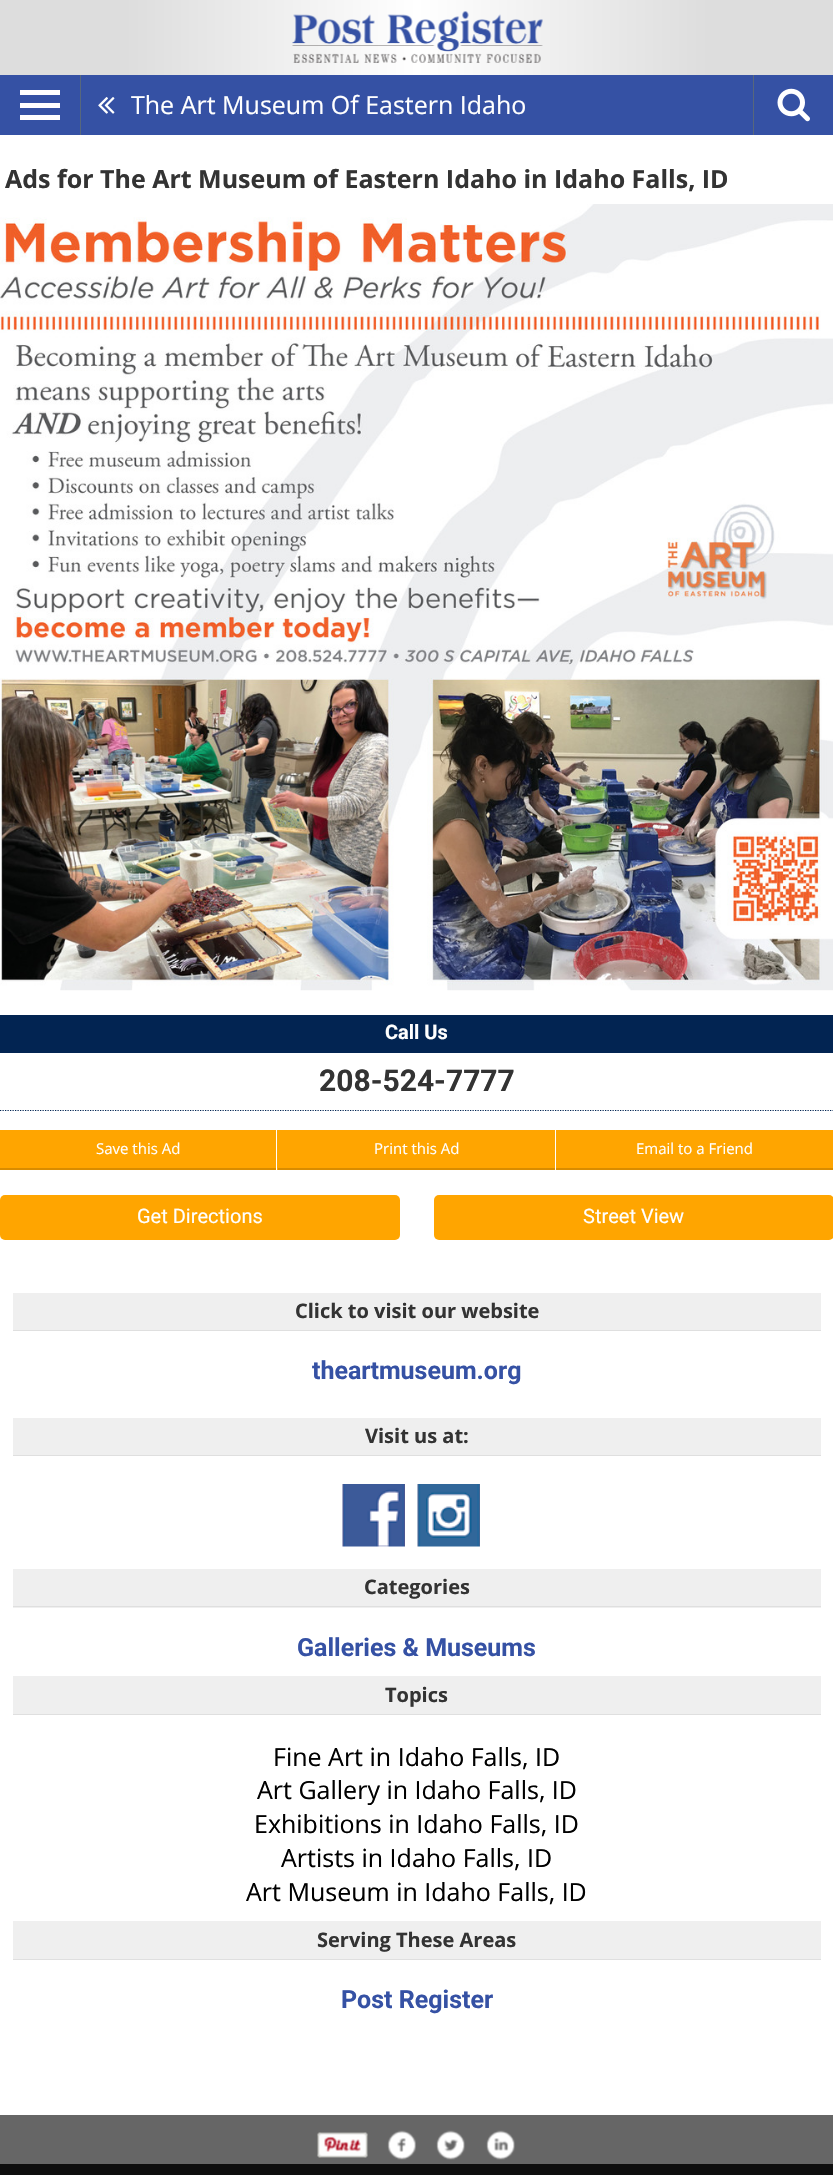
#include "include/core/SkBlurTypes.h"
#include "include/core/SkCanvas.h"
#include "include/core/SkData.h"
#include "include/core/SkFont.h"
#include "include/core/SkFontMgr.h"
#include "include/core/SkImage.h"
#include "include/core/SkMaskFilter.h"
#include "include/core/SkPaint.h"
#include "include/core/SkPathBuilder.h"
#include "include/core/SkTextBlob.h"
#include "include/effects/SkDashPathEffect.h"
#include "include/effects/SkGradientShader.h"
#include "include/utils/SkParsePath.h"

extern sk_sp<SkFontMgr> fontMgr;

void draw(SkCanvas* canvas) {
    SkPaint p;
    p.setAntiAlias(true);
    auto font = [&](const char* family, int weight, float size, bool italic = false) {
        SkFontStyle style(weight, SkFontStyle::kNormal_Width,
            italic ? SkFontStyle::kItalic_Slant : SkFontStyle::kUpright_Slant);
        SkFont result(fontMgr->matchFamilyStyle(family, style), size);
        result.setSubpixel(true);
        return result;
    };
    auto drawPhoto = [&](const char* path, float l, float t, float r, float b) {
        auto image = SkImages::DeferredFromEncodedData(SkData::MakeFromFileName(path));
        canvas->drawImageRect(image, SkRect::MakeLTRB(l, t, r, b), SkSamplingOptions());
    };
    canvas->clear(0xFFFFFFFF);
    p.setColor(0xFF666666);
    canvas->drawRect(SkRect::MakeLTRB(0, 2115, 833, 2164), p);
    {
        const SkColor colors[] = {0xFFDDDDDD, 0xFFFFFFFF, 0xFFDDDDDD};
        const float stops[] = {0.15f, 0.5f, 0.85f};
        const SkPoint ends[] = {{0, 37}, {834, 37}};
        p.setShader(SkGradientShader::MakeLinear(ends, colors, stops, 3, SkTileMode::kClamp));
        p.setAlpha(255);
    }
    canvas->drawRect(SkRect::MakeLTRB(0, 0, 833, 75), p);
    drawPhoto("media/1.png", 292, 11, 543, 63);
    p.setShader(nullptr);
    {
        const struct { float l, t, r, b; SkColor color; } items[] = {
            {0, 75, 833, 135, 0xFF3551A4},
            {20, 90, 60, 95, 0xFFFFFFFF},
            {20, 103, 60, 108, 0xFFFFFFFF},
            {20, 115, 60, 120, 0xFFFFFFFF},
            {753, 75, 754, 135, 0xFF57677C},
            {80, 75, 81, 135, 0xFF57677C},
        };
        for (auto [l, t, r, b, color] : items) {
            p.setColor(color);
            canvas->drawRect(SkRect::MakeLTRB(l, t, r, b), p);
        }
    }
    drawPhoto("media/2.png", 98, 97, 115, 114);
    auto font1 = font("Open Sans", 400, 25);
    p.setColor(0xFFFFFFFF);
    canvas->drawString("The Art Museum Of Eastern Idaho", 131, 114, font1, p);
    drawPhoto("media/3.png", 777, 88, 810, 122);
    auto font2 = font("Open Sans", 700, 25);
    p.setColor(0xFF333333);
    canvas->drawString("Ads for The Art Museum of Eastern Idaho in Idaho Falls, ID", 5, 188, font2, p);
    drawPhoto("media/4.png", 0, 204, 833, 991);
    p.setColor(0xFF022452);
    canvas->drawRect(SkRect::MakeLTRB(0, 1015, 833, 1053), p);
    auto font3 = font("Roboto", 700, 20);
    p.setColor(0xFFFFFFFF);
    canvas->drawString("Call Us", 385, 1039, font3, p);
    p.setStyle(SkPaint::kStroke_Style);
    p.setStrokeWidth(1.2f);
    p.setColor(0xFF022452);
    p.setPathEffect(SkDashPathEffect::Make({{1.25f, 1.25f}}, 0));
    canvas->drawPath(SkPathBuilder().moveTo(0, 1110.5f).lineTo(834, 1110.5f).detach(), p);
    p.setPathEffect(nullptr);
    auto font4 = font("Roboto", 700, 30);
    p.setStyle(SkPaint::kFill_Style);
    p.setColor(0xFF333333);
    canvas->drawString("208-524-7777", 319, 1091, font4, p);
    {
        const struct { float l, t, r, b; SkColor color; } items[] = {
            {0, 1130, 278, 1170, 0xFFFFA500},
            {0, 1168, 276, 1170, 0xFFD98C00},
            {276, 1130, 277, 1170, 0xFFFFFFFF},
        };
        for (auto [l, t, r, b, color] : items) {
            p.setColor(color);
            canvas->drawRect(SkRect::MakeLTRB(l, t, r, b), p);
        }
    }
    auto font5 = font("Open Sans", 400, 15);
    canvas->drawString("Save this Ad", 96, 1154, font5, p);
    p.setColor(0xFFFFA500);
    canvas->drawRect(SkRect::MakeLTRB(278, 1130, 555, 1168), p);
    p.setColor(0xFFD98C00);
    canvas->drawRect(SkRect::MakeLTRB(278, 1168, 555, 1170), p);
    p.setColor(0xFFFFFFFF);
    canvas->drawString("Print this Ad", 374, 1154, font5, p);
    p.setColor(0xFFFFA500);
    canvas->drawRect(SkRect::MakeLTRB(556, 1130, 833, 1168), p);
    p.setColor(0xFFD98C00);
    canvas->drawRect(SkRect::MakeLTRB(556, 1168, 833, 1170), p);
    p.setColor(0xFFFFFFFF);
    canvas->drawString("Email to a Friend", 636, 1154, font5, p);
    p.setColor(0xFFFFA500);
    canvas->drawRoundRect(SkRect::MakeLTRB(0, 1195, 400, 1240), 5, 5, p);
    auto font6 = font("Roboto", 400, 20);
    p.setColor(0xFFFFFFFF);
    canvas->drawString("Get Directions", 137, 1223, font6, p);
    p.setColor(0xFFFFA500);
    canvas->drawRoundRect(SkRect::MakeLTRB(434, 1195, 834, 1240), 5, 5, p);
    p.setColor(0xFFFFFFFF);
    canvas->drawString("Street View", 583, 1223, font6, p);
    p.setColor(0xFFEFEFEF);
    canvas->drawRect(SkRect::MakeLTRB(13, 1293, 821, 1330), p);
    p.setColor(0xFFDFDFDF);
    canvas->drawRect(SkRect::MakeLTRB(13, 1330, 821, 1331), p);
    auto font7 = font("Open Sans", 700, 20);
    p.setColor(0xFF333333);
    canvas->drawString("Click to visit our website", 295, 1318, font7, p);
    auto font8 = font("Roboto", 700, 25);
    p.setColor(0xFF3551A4);
    canvas->drawString("theartmuseum.org", 312, 1379, font8, p);
    p.setColor(0xFFEFEFEF);
    canvas->drawRect(SkRect::MakeLTRB(13, 1418, 821, 1455), p);
    p.setColor(0xFFDFDFDF);
    canvas->drawRect(SkRect::MakeLTRB(13, 1455, 821, 1456), p);
    p.setColor(0xFF333333);
    canvas->drawString("Visit us at:", 365, 1443, font7, p);
    drawPhoto("media/5.png", 342, 1484, 405, 1547);
    drawPhoto("media/6.png", 417, 1484, 480, 1547);
    p.setColor(0xFFEFEFEF);
    canvas->drawRect(SkRect::MakeLTRB(13, 1569, 821, 1608), p);
    p.setColor(0xFFDFDFDF);
    canvas->drawRect(SkRect::MakeLTRB(13, 1606, 821, 1607), p);
    p.setColor(0xFF333333);
    canvas->drawString("Categories", 364, 1594, font7, p);
    p.setColor(0xFF3551A4);
    canvas->drawString("Galleries & Museums", 297, 1656, font8, p);
    p.setColor(0xFFEFEFEF);
    canvas->drawRect(SkRect::MakeLTRB(13, 1676, 821, 1714), p);
    p.setColor(0xFFDFDFDF);
    canvas->drawRect(SkRect::MakeLTRB(13, 1714, 821, 1715), p);
    p.setColor(0xFF333333);
    canvas->drawString("Topics", 385, 1702, font7, p);
    p.setColor(0xFF000000);
    {
        const struct { const char* s; float x, y; } items[] = {
            {"Fine Art in Idaho Falls, ID", 273, 1766},
            {"Art Gallery in Idaho Falls, ID", 257, 1799},
            {"Exhibitions in Idaho Falls, ID", 254, 1833},
            {"Artists in Idaho Falls, ID", 281, 1867},
            {"Art Museum in Idaho Falls, ID", 246, 1901},
        };
        for (auto [s, x, y] : items) {
            canvas->drawString(s, x, y, font1, p);
        }
    }
    p.setColor(0xFFEFEFEF);
    canvas->drawRect(SkRect::MakeLTRB(13, 1921, 821, 1959), p);
    p.setColor(0xFFDFDFDF);
    canvas->drawRect(SkRect::MakeLTRB(13, 1959, 821, 1960), p);
    p.setColor(0xFF333333);
    canvas->drawString("Serving These Areas", 317, 1947, font7, p);
    p.setColor(0xFF3551A4);
    canvas->drawString("Post Register", 341, 2008, font8, p);
    drawPhoto("media/7.png", 317, 2132, 368, 2158);
    drawPhoto("media/8.png", 387, 2130, 416, 2160);
    drawPhoto("media/9.png", 436, 2130, 465, 2160);
    drawPhoto("media/10.png", 486, 2130, 515, 2160);
    p.setColor(0xFF0E0E0E);
    canvas->drawRect(SkRect::MakeLTRB(0, 2164, 833, 2175), p);
}
